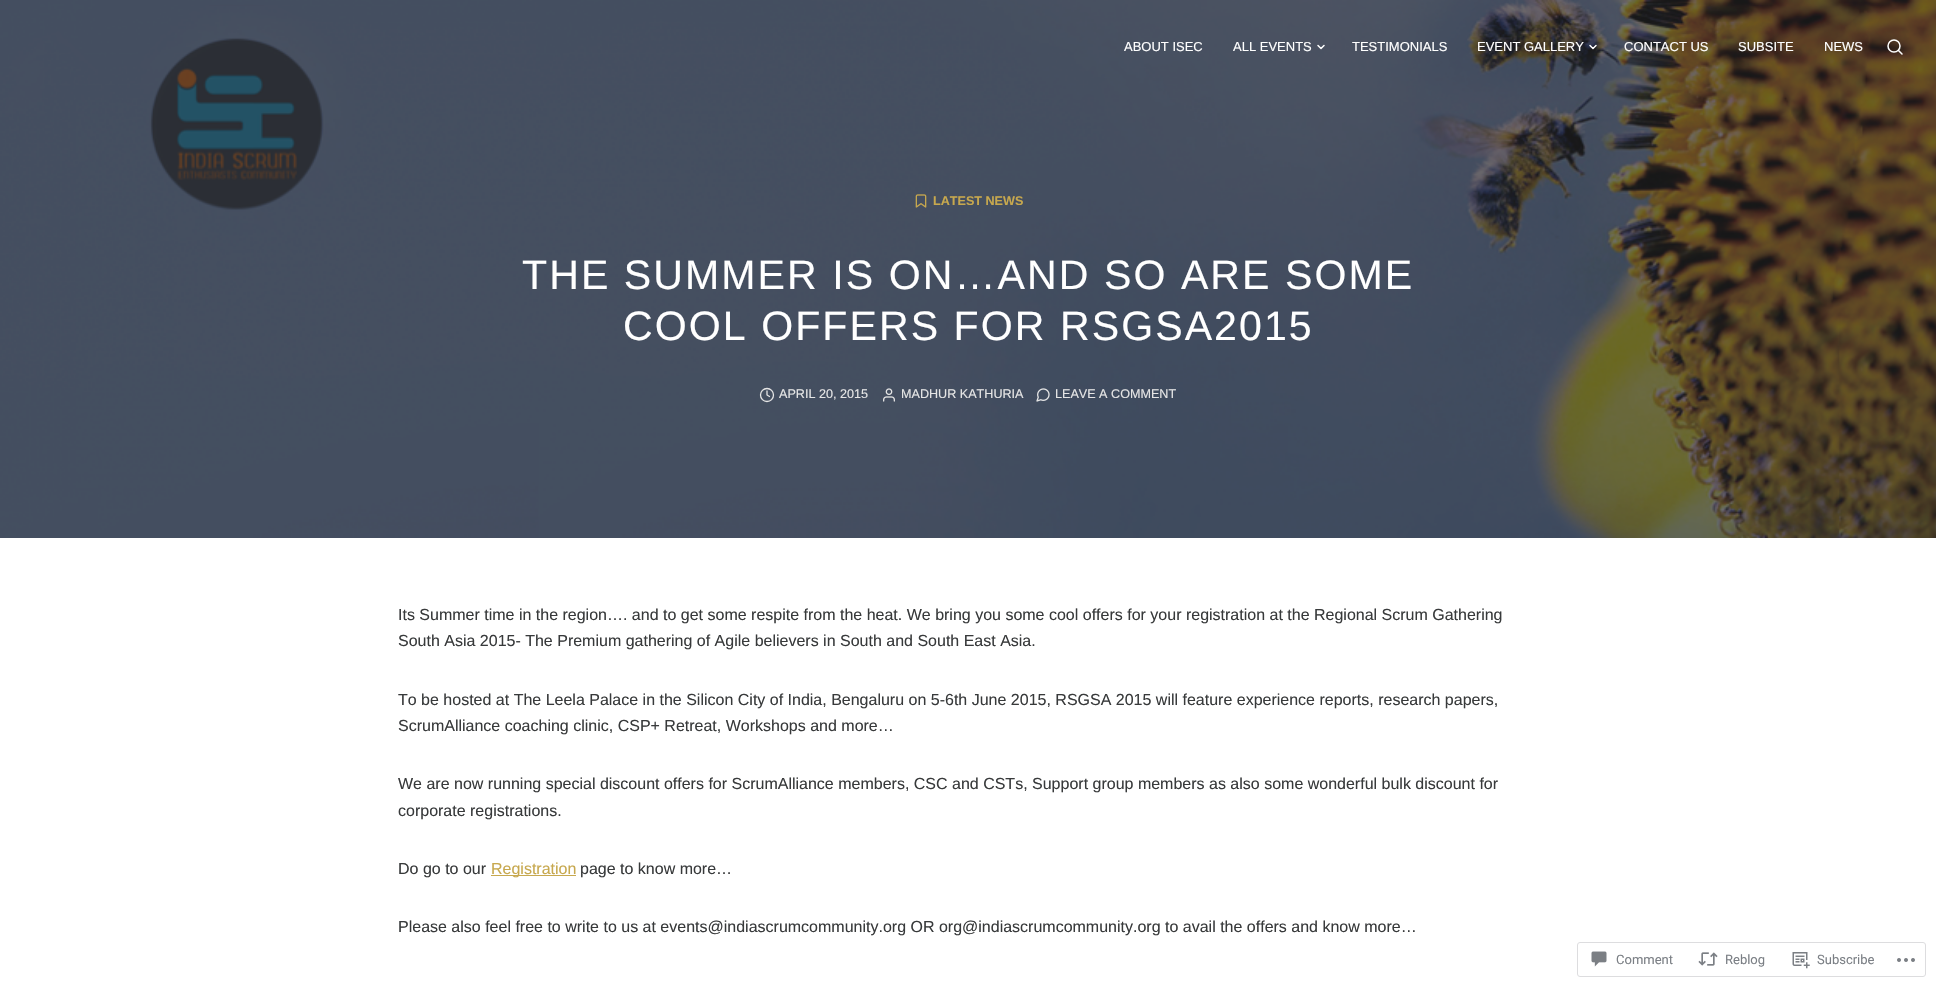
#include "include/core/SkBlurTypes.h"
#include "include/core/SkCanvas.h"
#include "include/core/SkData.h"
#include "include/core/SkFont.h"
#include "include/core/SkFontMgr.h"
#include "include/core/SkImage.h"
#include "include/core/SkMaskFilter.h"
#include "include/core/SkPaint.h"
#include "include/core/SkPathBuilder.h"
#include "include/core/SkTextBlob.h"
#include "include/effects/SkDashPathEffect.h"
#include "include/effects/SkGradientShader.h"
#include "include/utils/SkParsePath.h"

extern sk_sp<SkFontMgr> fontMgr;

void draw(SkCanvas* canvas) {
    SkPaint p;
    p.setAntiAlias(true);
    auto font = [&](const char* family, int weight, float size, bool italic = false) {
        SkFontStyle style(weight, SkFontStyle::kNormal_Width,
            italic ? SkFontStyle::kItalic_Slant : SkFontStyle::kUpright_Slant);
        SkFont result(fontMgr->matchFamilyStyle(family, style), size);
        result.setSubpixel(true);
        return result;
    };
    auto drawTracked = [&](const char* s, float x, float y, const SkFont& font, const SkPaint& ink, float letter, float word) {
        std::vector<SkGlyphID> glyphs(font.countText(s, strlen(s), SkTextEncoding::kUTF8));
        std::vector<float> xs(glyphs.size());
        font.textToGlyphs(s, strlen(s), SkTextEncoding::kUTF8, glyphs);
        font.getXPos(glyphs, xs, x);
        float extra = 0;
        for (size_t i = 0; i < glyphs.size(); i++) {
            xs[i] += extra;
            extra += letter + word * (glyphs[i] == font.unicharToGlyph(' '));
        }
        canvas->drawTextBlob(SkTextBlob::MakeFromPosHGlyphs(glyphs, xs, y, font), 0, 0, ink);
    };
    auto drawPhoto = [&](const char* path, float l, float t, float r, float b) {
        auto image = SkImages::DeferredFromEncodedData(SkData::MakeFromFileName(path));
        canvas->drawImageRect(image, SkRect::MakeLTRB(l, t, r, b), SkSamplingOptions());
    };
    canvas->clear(0xFFFFFFFF);
    p.setColor(0xFF212121);
    canvas->drawRect(SkRect::MakeLTRB(0, 0, 1936, 538), p);
    drawPhoto("media/1.png", 0, 0, 1936, 538);
    auto font1 = font("Arimo", 400, 13);
    p.setColor(0xFFFFFFFF);
    canvas->drawString("ABOUT ISEC", 1124, 51, font1, p);
    canvas->drawString("ALL EVENTS", 1233, 51, font1, p);
    p.setStyle(SkPaint::kStroke_Style);
    p.setStrokeWidth(1.5f);
    p.setStrokeCap(SkPaint::kRound_Cap);
    p.setStrokeJoin(SkPaint::kRound_Join);
    canvas->drawPath(SkPathBuilder().moveTo(1318, 45.5f).lineTo(1321, 48.5f).lineTo(1324, 45.5f).detach(), p);
    p.setStyle(SkPaint::kFill_Style);
    canvas->drawString("TESTIMONIALS", 1352, 51, font1, p);
    canvas->drawString("EVENT GALLERY", 1477, 51, font1, p);
    p.setStyle(SkPaint::kStroke_Style);
    canvas->drawPath(SkPathBuilder().moveTo(1590, 45.5f).lineTo(1593, 48.5f).lineTo(1596, 45.5f).detach(), p);
    p.setStyle(SkPaint::kFill_Style);
    {
        const struct { const char* s; float x, y; } items[] = {
            {"CONTACT US", 1624, 51},
            {"SUBSITE", 1738, 51},
            {"NEWS", 1824, 51},
        };
        for (auto [s, x, y] : items) {
            canvas->drawString(s, x, y, font1, p);
        }
    }
    p.setStyle(SkPaint::kStroke_Style);
    p.setStrokeCap(SkPaint::kButt_Cap);
    p.setStrokeJoin(SkPaint::kMiter_Join);
    canvas->drawCircle(1894, 46, 6, p);
    p.setStrokeCap(SkPaint::kRound_Cap);
    p.setStrokeJoin(SkPaint::kRound_Join);
    canvas->drawPath(SkPathBuilder().moveTo(1902, 54).lineTo(1898.5f, 50.5f).detach(), p);
    drawPhoto("media/2.png", 915, 194, 927, 208);
    auto font2 = font("Arimo", 700, 12.6f);
    p.setStyle(SkPaint::kFill_Style);
    p.setColor(0xFFC7A84E);
    canvas->drawString("LATEST NEWS", 933, 205, font2, p);
    auto font3 = font("Arimo", 400, 41.1f);
    p.setColor(0xFFFFFFFF);
    drawTracked("THE SUMMER IS ON…AND SO ARE SOME", 522, 289, font3, p, 2.05f, 0);
    drawTracked("COOL OFFERS FOR RSGSA2015", 623, 340, font3, p, 2.05f, 0);
    p.setStyle(SkPaint::kStroke_Style);
    p.setStrokeWidth(1.3f);
    p.setStrokeCap(SkPaint::kButt_Cap);
    p.setStrokeJoin(SkPaint::kMiter_Join);
    p.setColor(0xFFE5E5E5);
    canvas->drawCircle(767, 395, 6.5f, p);
    p.setStrokeCap(SkPaint::kRound_Cap);
    p.setStrokeJoin(SkPaint::kRound_Join);
    canvas->drawPath(SkPathBuilder().moveTo(767, 391).lineTo(767, 395).lineTo(769.5f, 396.5f).detach(), p);
    auto font4 = font("Arimo", 400, 12.6f);
    p.setStyle(SkPaint::kFill_Style);
    canvas->drawString("APRIL 20, 2015", 779, 398, font4, p);
    drawPhoto("media/3.png", 883, 388, 895, 402);
    canvas->drawString("MADHUR KATHURIA", 901, 398, font4, p);
    drawPhoto("media/4.png", 1036, 388, 1050, 402);
    canvas->drawString("LEAVE A COMMENT", 1055, 398, font4, p);
    auto font5 = font("Arimo", 400, 16);
    p.setColor(0xFF383A3B);
    {
        const struct { const char* s; float x, y; } items[] = {
            {"Its Summer time in the region…. and to get some respite from the heat. We bring you some cool offers for your registration at the Regional Scrum Gathering", 398, 620},
            {"South Asia 2015- The Premium gathering of Agile believers in South and South East Asia.", 398, 646},
            {"To be hosted at The Leela Palace in the Silicon City of India, Bengaluru on 5-6th June 2015, RSGSA 2015 will feature experience reports, research papers,", 398, 705},
            {"ScrumAlliance coaching clinic, CSP+ Retreat, Workshops and more…", 398, 731},
            {"We are now running special discount offers for ScrumAlliance members, CSC and CSTs, Support group members as also some wonderful bulk discount for", 398, 789},
            {"corporate registrations.", 398, 816},
            {"Do go to our", 398, 874},
        };
        for (auto [s, x, y] : items) {
            canvas->drawString(s, x, y, font5, p);
        }
    }
    p.setColor(0xFFC7A84E);
    canvas->drawRect(SkRect::MakeLTRB(491, 875, 576, 876), p);
    canvas->drawString("Registration", 491, 874, font5, p);
    p.setColor(0xFF383A3B);
    canvas->drawString("page to know more…", 580, 874, font5, p);
    canvas->drawString("Please also feel free to write to us at events@indiascrumcommunity.org OR org@indiascrumcommunity.org to avail the offers and know more…", 398, 932, font5, p);
    p.setStyle(SkPaint::kStroke_Style);
    p.setStrokeWidth(1);
    p.setStrokeCap(SkPaint::kButt_Cap);
    p.setStrokeJoin(SkPaint::kMiter_Join);
    p.setColor(0xFFDDDDDF);
    canvas->drawRoundRect(SkRect::MakeLTRB(1577.5f, 942.5f, 1925.5f, 976.5f), 2.5f, 2.5f, p);
    drawPhoto("media/5.png", 1591, 951, 1607, 967);
    auto font6 = font("Roboto", 400, 13);
    p.setStyle(SkPaint::kFill_Style);
    p.setColor(0xFF7B7F85);
    canvas->drawString("Comment", 1616, 964, font6, p);
    drawPhoto("media/6.png", 1698, 952, 1718, 966);
    canvas->drawString("Reblog", 1725, 964, font6, p);
    drawPhoto("media/7.png", 1792, 952, 1810, 969);
    canvas->drawString("Subscribe", 1817, 964, font6, p);
    drawPhoto("media/8.png", 1897, 958, 1915, 962);
}
